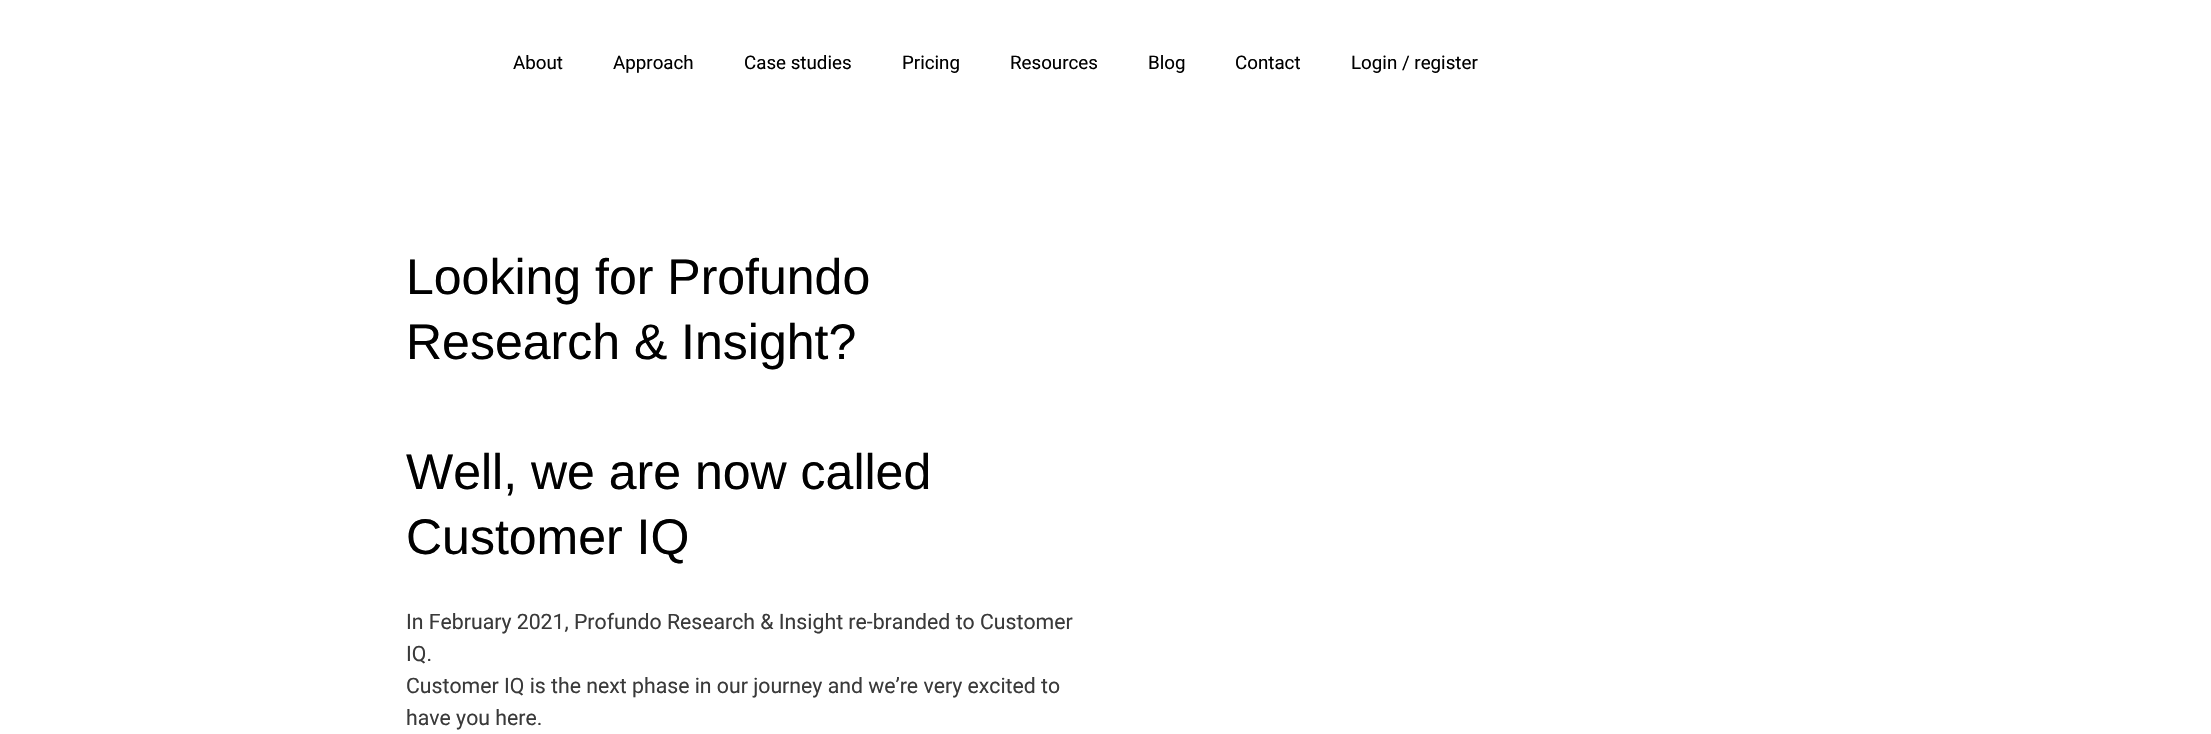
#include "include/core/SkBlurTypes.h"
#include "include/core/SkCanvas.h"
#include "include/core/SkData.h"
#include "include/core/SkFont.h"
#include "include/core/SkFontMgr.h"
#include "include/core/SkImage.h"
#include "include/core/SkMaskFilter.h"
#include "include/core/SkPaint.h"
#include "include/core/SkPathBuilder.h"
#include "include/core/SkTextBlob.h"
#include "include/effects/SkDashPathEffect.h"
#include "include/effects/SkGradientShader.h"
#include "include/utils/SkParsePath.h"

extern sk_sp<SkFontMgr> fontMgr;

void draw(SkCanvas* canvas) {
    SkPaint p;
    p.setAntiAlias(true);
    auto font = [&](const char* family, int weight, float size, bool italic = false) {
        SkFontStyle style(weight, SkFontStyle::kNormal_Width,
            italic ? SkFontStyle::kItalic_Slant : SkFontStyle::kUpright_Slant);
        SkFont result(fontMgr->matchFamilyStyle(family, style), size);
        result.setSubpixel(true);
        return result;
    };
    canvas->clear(0xFFFFFFFF);
    auto font1 = font("Roboto", 400, 18.75f);
    p.setColor(0xFF000000);
    {
        const struct { const char* s; float x, y; } items[] = {
            {"About", 513, 69},
            {"Approach", 613, 69},
            {"Case studies", 744, 69},
            {"Pricing", 902, 69},
            {"Resources", 1010, 69},
            {"Blog", 1148, 69},
            {"Contact", 1235, 69},
            {"Login / register", 1351, 69},
        };
        for (auto [s, x, y] : items) {
            canvas->drawString(s, x, y, font1, p);
        }
    }
    auto font2 = font("Liberation Sans", 400, 50);
    {
        const struct { const char* s; float x, y; } items[] = {
            {"Looking for Profundo", 406, 294},
            {"Research & Insight?", 406, 359},
            {"Well, we are now called", 406, 489},
            {"Customer IQ", 406, 554},
        };
        for (auto [s, x, y] : items) {
            canvas->drawString(s, x, y, font2, p);
        }
    }
    auto font3 = font("Roboto", 400, 21.25f);
    p.setColor(0xFF3A3A3A);
    {
        const struct { const char* s; float x, y; } items[] = {
            {"In February 2021, Profundo Research & Insight re-branded to Customer", 406, 629},
            {"IQ.", 406, 661},
            {"Customer IQ is the next phase in our journey and we’re very excited to", 406, 693},
            {"have you here.", 406, 725},
        };
        for (auto [s, x, y] : items) {
            canvas->drawString(s, x, y, font3, p);
        }
    }
}
